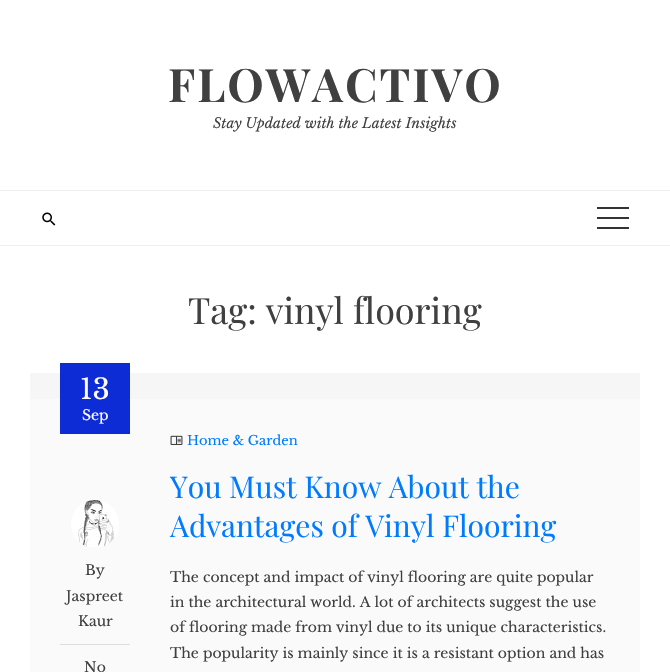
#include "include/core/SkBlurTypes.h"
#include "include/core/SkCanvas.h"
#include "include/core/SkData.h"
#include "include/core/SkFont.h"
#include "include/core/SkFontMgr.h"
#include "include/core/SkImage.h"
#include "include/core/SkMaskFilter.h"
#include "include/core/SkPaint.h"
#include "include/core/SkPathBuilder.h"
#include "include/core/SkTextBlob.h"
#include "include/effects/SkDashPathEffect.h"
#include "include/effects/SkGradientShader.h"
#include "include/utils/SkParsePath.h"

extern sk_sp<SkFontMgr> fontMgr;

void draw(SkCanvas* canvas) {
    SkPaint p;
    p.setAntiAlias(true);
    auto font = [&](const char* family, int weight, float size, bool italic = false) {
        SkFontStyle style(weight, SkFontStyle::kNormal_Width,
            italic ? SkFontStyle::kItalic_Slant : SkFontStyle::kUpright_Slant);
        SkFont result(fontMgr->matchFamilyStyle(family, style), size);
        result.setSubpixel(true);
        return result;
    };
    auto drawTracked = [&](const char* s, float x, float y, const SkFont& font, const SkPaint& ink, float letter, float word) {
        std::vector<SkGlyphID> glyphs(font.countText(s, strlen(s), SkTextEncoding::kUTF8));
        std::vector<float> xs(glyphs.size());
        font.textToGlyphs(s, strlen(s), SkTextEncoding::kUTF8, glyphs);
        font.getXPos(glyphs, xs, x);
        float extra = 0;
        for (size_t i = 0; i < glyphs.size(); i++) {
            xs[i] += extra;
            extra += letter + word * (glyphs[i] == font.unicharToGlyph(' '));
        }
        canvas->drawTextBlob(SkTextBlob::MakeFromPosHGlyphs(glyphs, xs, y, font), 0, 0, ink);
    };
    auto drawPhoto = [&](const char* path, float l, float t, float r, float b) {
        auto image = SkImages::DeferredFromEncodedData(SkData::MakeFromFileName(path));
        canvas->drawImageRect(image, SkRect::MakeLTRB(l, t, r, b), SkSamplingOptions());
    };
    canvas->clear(0xFFFFFFFF);
    auto font1 = font("Playfair Display", 700, 46);
    p.setColor(0xFF404040);
    drawTracked("FLOWACTIVO", 168, 102, font1, p, 2, 0);
    auto font2 = font("Libre Baskerville", 400, 14, true);
    canvas->drawString("Stay Updated with the Latest Insights", 213, 128, font2, p);
    p.setColor(0xFFEEEEEE);
    canvas->drawRect(SkRect::MakeLTRB(0, 190, 670, 191), p);
    canvas->drawRect(SkRect::MakeLTRB(0, 245, 670, 246), p);
    drawPhoto("media/1.png", 42, 212, 56, 226);
    {
        const struct { float l, t, r, b; SkColor color; } items[] = {
            {597, 207, 629, 209, 0xFF333333},
            {597, 227, 629, 229, 0xFF333333},
            {597, 217, 629, 219, 0xFF333333},
        };
        for (auto [l, t, r, b, color] : items) {
            p.setColor(color);
            canvas->drawRect(SkRect::MakeLTRB(l, t, r, b), p);
        }
    }
    auto font3 = font("Playfair Display", 400, 36);
    p.setColor(0xFF404040);
    canvas->drawString("Tag: vinyl flooring", 188, 324, font3, p);
    {
        const struct { float l, t, r, b; SkColor color; } items[] = {
            {30, 373, 640, 399, 0xFFF6F6F6},
            {30, 399, 640, 672, 0xFFFAFAFA},
            {60, 363, 130, 434, 0xFF0E2CD6},
        };
        for (auto [l, t, r, b, color] : items) {
            p.setColor(color);
            canvas->drawRect(SkRect::MakeLTRB(l, t, r, b), p);
        }
    }
    auto font4 = font("Libre Baskerville", 400, 28);
    p.setColor(0xFFFFFFFF);
    canvas->drawString("13", 80, 399, font4, p);
    auto font5 = font("Libre Baskerville", 400, 14);
    canvas->drawString("Sep", 82, 420, font5, p);
    p.setColor(0xFFDDDDDD);
    canvas->drawRect(SkRect::MakeLTRB(60, 644, 130, 645), p);
    drawPhoto("media/2.png", 71, 500, 119, 547);
    p.setColor(0xFF404040);
    {
        const struct { const char* s; float x, y; } items[] = {
            {"By", 85, 575},
            {"Jaspreet", 66, 601},
            {"Kaur", 78, 626},
            {"No", 84, 672},
        };
        for (auto [s, x, y] : items) {
            canvas->drawString(s, x, y, font5, p);
        }
    }
    drawPhoto("media/3.png", 170, 435, 183, 445);
    auto font6 = font("Libre Baskerville", 400, 13);
    p.setColor(0xFF007BFF);
    canvas->drawString("Home & Garden", 187, 445, font6, p);
    auto font7 = font("Playfair Display", 400, 30);
    canvas->drawString("You Must Know About the", 170, 498, font7, p);
    canvas->drawString("Advantages of Vinyl Flooring", 170, 537, font7, p);
    p.setColor(0xFF404040);
    {
        const struct { const char* s; float x, y; } items[] = {
            {"The concept and impact of vinyl flooring are quite popular", 170, 582},
            {"in the architectural world. A lot of architects suggest the use", 170, 607},
            {"of flooring made from vinyl due to its unique characteristics.", 170, 632},
            {"The popularity is mainly since it is a resistant option and has", 170, 658},
        };
        for (auto [s, x, y] : items) {
            canvas->drawString(s, x, y, font5, p);
        }
    }
}
